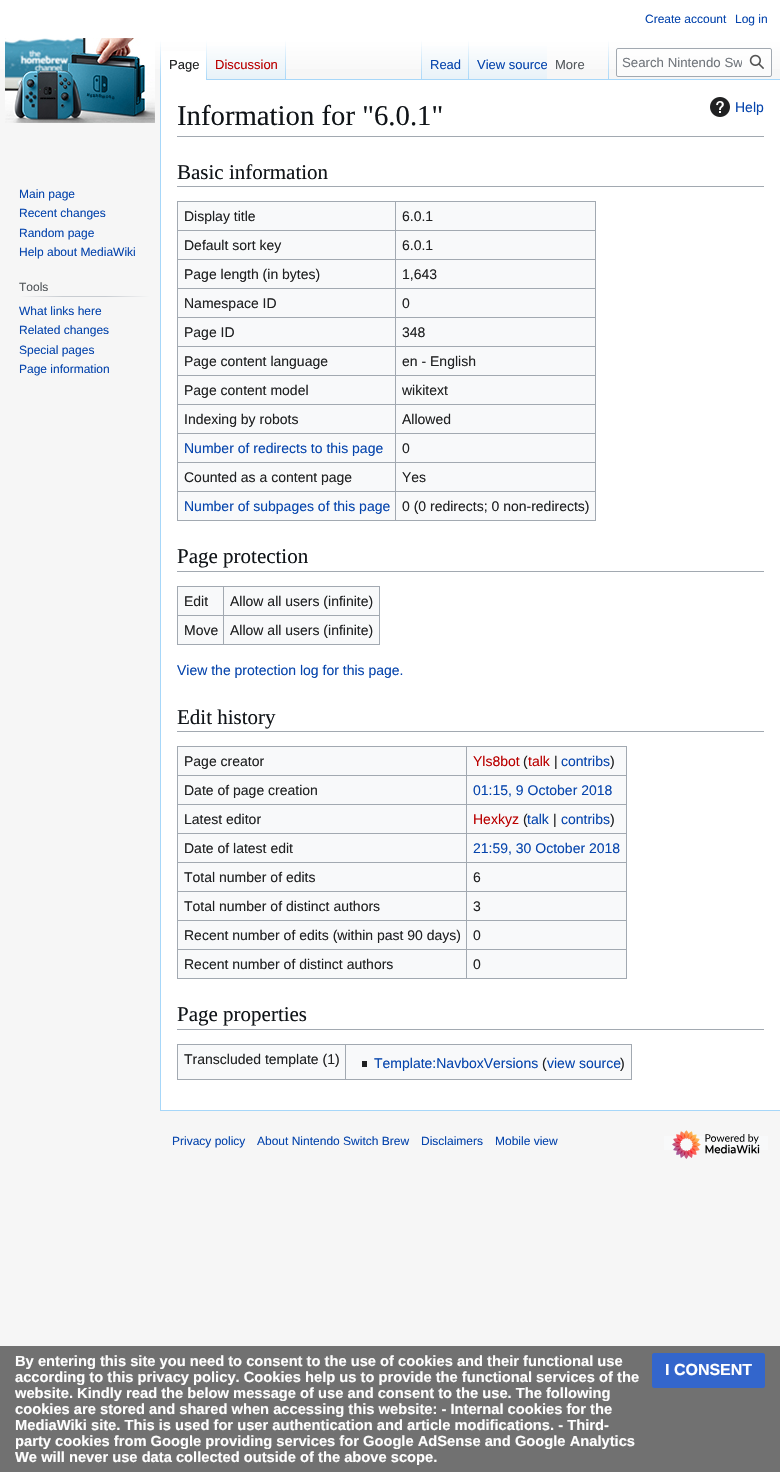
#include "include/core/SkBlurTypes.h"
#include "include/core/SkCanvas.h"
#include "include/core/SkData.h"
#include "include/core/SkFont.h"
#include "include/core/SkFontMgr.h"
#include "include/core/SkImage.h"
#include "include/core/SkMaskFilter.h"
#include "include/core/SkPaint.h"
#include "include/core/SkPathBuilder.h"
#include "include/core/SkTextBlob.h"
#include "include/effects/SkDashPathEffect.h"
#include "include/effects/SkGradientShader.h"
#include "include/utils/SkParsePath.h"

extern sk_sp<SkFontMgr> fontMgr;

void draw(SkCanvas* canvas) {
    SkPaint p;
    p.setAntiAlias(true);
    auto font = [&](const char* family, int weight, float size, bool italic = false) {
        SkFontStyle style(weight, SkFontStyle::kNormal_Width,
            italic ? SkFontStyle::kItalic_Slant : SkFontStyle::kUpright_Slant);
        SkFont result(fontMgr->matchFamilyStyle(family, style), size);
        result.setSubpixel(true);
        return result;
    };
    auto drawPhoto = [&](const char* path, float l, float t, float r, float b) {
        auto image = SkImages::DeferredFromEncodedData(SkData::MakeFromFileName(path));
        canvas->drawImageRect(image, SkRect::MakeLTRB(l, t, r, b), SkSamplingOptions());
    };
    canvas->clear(0xFFF6F6F6);
    {
        const SkColor colors[] = {0xFFFFFFFF, 0xFFF6F6F6};
        const float stops[] = {0.5f, 1};
        const SkPoint ends[] = {{390, 0}, {390, 80}};
        p.setShader(SkGradientShader::MakeLinear(ends, colors, stops, 2, SkTileMode::kClamp));
        p.setAlpha(255);
    }
    canvas->drawRect(SkRect::MakeLTRB(0, 0, 780, 69), p);
    auto font1 = font("Liberation Sans", 400, 12);
    p.setShader(nullptr);
    p.setColor(0xFF0645AD);
    canvas->drawString("Create account", 645, 23, font1, p);
    canvas->drawString("Log in", 735, 23, font1, p);
    p.setColor(0xFFA7D7F9);
    canvas->drawRect(SkRect::MakeLTRB(160, 1110, 780, 1111), p);
    canvas->drawRect(SkRect::MakeLTRB(160, 79, 161, 1111), p);
    {
        const SkColor colors[] = {0x00A7D7F9, 0xFFA7D7F9};
        const float stops[] = {0, 1};
        const SkPoint ends[] = {{161, 40}, {161, 80}};
        p.setShader(SkGradientShader::MakeLinear(ends, colors, stops, 2, SkTileMode::kClamp));
        p.setAlpha(255);
    }
    canvas->drawRect(SkRect::MakeLTRB(160, 40, 161, 80), p);
    p.setShader(nullptr);
    p.setColor(0xFFFFFFFF);
    canvas->drawRect(SkRect::MakeLTRB(161, 51, 206, 80), p);
    {
        const SkColor colors[] = {0xFFFFFFFF, 0xFFA7D7F9};
        const float stops[] = {0, 1};
        const SkPoint ends[] = {{207, 40}, {207, 80}};
        p.setShader(SkGradientShader::MakeLinear(ends, colors, stops, 2, SkTileMode::kClamp));
        p.setAlpha(255);
    }
    canvas->drawRect(SkRect::MakeLTRB(206, 40, 207, 80), p);
    auto font2 = font("Liberation Sans", 400, 13);
    p.setShader(nullptr);
    p.setColor(0xFF202122);
    canvas->drawString("Page", 169, 69, font2, p);
    {
        const SkColor colors[] = {0xFF77C1F6, 0xFFE8F2F8, 0xFFFFFFFF};
        const float stops[] = {0, 0.03f, 1};
        const SkPoint ends[] = {{247, 80}, {247, 40}};
        p.setShader(SkGradientShader::MakeLinear(ends, colors, stops, 3, SkTileMode::kClamp));
        p.setAlpha(255);
    }
    canvas->drawRect(SkRect::MakeLTRB(207, 46, 286, 80), p);
    {
        const SkColor colors[] = {0x00A7D7F9, 0xFFA7D7F9};
        const float stops[] = {0, 1};
        const SkPoint ends[] = {{286, 40}, {286, 80}};
        p.setShader(SkGradientShader::MakeLinear(ends, colors, stops, 2, SkTileMode::kClamp));
        p.setAlpha(255);
    }
    canvas->drawRect(SkRect::MakeLTRB(285, 40, 286, 80), p);
    p.setShader(nullptr);
    p.setColor(0xFFBA0000);
    canvas->drawString("Discussion", 215, 69, font2, p);
    p.setColor(0xFFA7D7F9);
    canvas->drawRect(SkRect::MakeLTRB(286, 79, 780, 80), p);
    {
        const SkColor colors[] = {0x00A7D7F9, 0xFFA7D7F9};
        const float stops[] = {0, 1};
        const SkPoint ends[] = {{422, 40}, {422, 80}};
        p.setShader(SkGradientShader::MakeLinear(ends, colors, stops, 2, SkTileMode::kClamp));
        p.setAlpha(255);
    }
    canvas->drawRect(SkRect::MakeLTRB(421, 40, 422, 80), p);
    {
        const SkColor colors[] = {0xFF77C1F6, 0xFFE8F2F8, 0xFFFFFFFF};
        const float stops[] = {0, 0.03f, 1};
        const SkPoint ends[] = {{446, 80}, {446, 40}};
        p.setShader(SkGradientShader::MakeLinear(ends, colors, stops, 3, SkTileMode::kClamp));
        p.setAlpha(255);
    }
    canvas->drawRect(SkRect::MakeLTRB(422, 46, 469, 79), p);
    {
        const SkColor colors[] = {0x00A7D7F9, 0xFFA7D7F9};
        const float stops[] = {0, 1};
        const SkPoint ends[] = {{469, 40}, {469, 80}};
        p.setShader(SkGradientShader::MakeLinear(ends, colors, stops, 2, SkTileMode::kClamp));
        p.setAlpha(255);
    }
    canvas->drawRect(SkRect::MakeLTRB(468, 40, 469, 80), p);
    p.setShader(nullptr);
    p.setColor(0xFF0645AD);
    canvas->drawString("Read", 430, 69, font2, p);
    {
        const SkColor colors[] = {0xFF77C1F6, 0xFFE8F2F8, 0xFFFFFFFF};
        const float stops[] = {0, 0.03f, 1};
        const SkPoint ends[] = {{508, 80}, {508, 40}};
        p.setShader(SkGradientShader::MakeLinear(ends, colors, stops, 3, SkTileMode::kClamp));
        p.setAlpha(255);
    }
    canvas->drawRect(SkRect::MakeLTRB(469, 46, 547, 79), p);
    canvas->save();
    canvas->clipRect(SkRect::MakeLTRB(469, 40, 547, 80));
    p.setShader(nullptr);
    p.setColor(0xFF0645AD);
    canvas->drawString("View source", 477, 69, font2, p);
    canvas->restore();
    {
        const SkColor colors[] = {0x00A7D7F9, 0xFFA7D7F9};
        const float stops[] = {0, 1};
        const SkPoint ends[] = {{609, 40}, {609, 80}};
        p.setShader(SkGradientShader::MakeLinear(ends, colors, stops, 2, SkTileMode::kClamp));
        p.setAlpha(255);
    }
    canvas->drawRect(SkRect::MakeLTRB(608, 40, 609, 80), p);
    p.setShader(nullptr);
    p.setColor(0xFF54595D);
    canvas->drawString("More", 555, 69, font2, p);
    p.setColor(0x80FFFFFF);
    canvas->drawRoundRect(SkRect::MakeLTRB(616.5f, 48.5f, 771.5f, 76.5f), 1.5f, 1.5f, p);
    p.setStyle(SkPaint::kStroke_Style);
    p.setStrokeWidth(1);
    p.setColor(0xFFA2A9B1);
    canvas->drawRoundRect(SkRect::MakeLTRB(616.5f, 48.5f, 771.5f, 76.5f), 1.5f, 1.5f, p);
    canvas->save();
    canvas->clipRect(SkRect::MakeLTRB(622, 55, 742, 70));
    auto font3 = font("Liberation Sans", 400, 13.25f);
    p.setStyle(SkPaint::kFill_Style);
    p.setColor(0xFF72777D);
    canvas->drawString("Search Nintendo Sw", 622, 67, font3, p);
    canvas->restore();
    drawPhoto("media/1.png", 749, 54, 764, 69);
    drawPhoto("media/2.png", 5, 38, 155, 123);
    p.setColor(0xFF0645AD);
    {
        const struct { const char* s; float x, y; } items[] = {
            {"Main page", 19, 198},
            {"Recent changes", 19, 217},
            {"Random page", 19, 237},
            {"Help about MediaWiki", 19, 256},
        };
        for (auto [s, x, y] : items) {
            canvas->drawString(s, x, y, font1, p);
        }
    }
    {
        const SkColor colors[] = {0xFFF6F6F6, 0xFFC8CCD1, 0xFFC8CCD1, 0xFFF6F6F6};
        const float stops[] = {0, 0.33f, 0.66f, 1};
        const SkPoint ends[] = {{19, 297}, {150, 297}};
        p.setShader(SkGradientShader::MakeLinear(ends, colors, stops, 4, SkTileMode::kClamp));
        p.setAlpha(255);
    }
    canvas->drawRect(SkRect::MakeLTRB(19, 296, 150, 297), p);
    p.setShader(nullptr);
    p.setColor(0xFF54595D);
    canvas->drawString("Tools", 19, 291, font1, p);
    p.setColor(0xFF0645AD);
    {
        const struct { const char* s; float x, y; } items[] = {
            {"What links here", 19, 315},
            {"Related changes", 19, 334},
            {"Special pages", 19, 354},
            {"Page information", 19, 373},
        };
        for (auto [s, x, y] : items) {
            canvas->drawString(s, x, y, font1, p);
        }
    }
    p.setColor(0xFFFFFFFF);
    canvas->drawRect(SkRect::MakeLTRB(161, 80, 780, 1110), p);
    p.setColor(0xFFA2A9B1);
    canvas->drawRect(SkRect::MakeLTRB(177, 136, 764, 137), p);
    auto font4 = font("Liberation Serif", 400, 28.75f);
    p.setColor(0xFF101418);
    canvas->drawString("Information for \"6.0.1\"", 177, 125, font4, p);
    drawPhoto("media/3.png", 710, 97, 730, 117);
    auto font5 = font("Liberation Sans", 400, 14);
    p.setColor(0xFF0645AD);
    canvas->drawString("Help", 735, 112, font5, p);
    p.setColor(0xFFA2A9B1);
    canvas->drawRect(SkRect::MakeLTRB(177, 186, 764, 187), p);
    auto font6 = font("Liberation Serif", 400, 21);
    p.setColor(0xFF101418);
    canvas->drawString("Basic information", 177, 179, font6, p);
    {
        const struct { float l, t, r, b; SkColor color; } items[] = {
            {178, 202, 595, 520, 0xFFF8F9FA},
            {177, 201, 596, 202, 0xFFA2A9B1},
            {595, 201, 596, 521, 0xFFA2A9B1},
            {177, 520, 596, 521, 0xFFA2A9B1},
            {177, 201, 178, 521, 0xFFA2A9B1},
        };
        for (auto [l, t, r, b, color] : items) {
            p.setColor(color);
            canvas->drawRect(SkRect::MakeLTRB(l, t, r, b), p);
        }
    }
    p.setColor(0xFF202122);
    canvas->drawString("Display title", 184, 221, font5, p);
    {
        const struct { float l, t, r, b; SkColor color; } items[] = {
            {395, 230, 596, 231, 0xFFA2A9B1},
            {395, 259, 596, 260, 0xFFA2A9B1},
            {395, 288, 596, 289, 0xFFA2A9B1},
            {395, 317, 596, 318, 0xFFA2A9B1},
            {395, 346, 596, 347, 0xFFA2A9B1},
            {395, 375, 596, 376, 0xFFA2A9B1},
            {395, 404, 596, 405, 0xFFA2A9B1},
            {395, 433, 596, 434, 0xFFA2A9B1},
            {395, 462, 596, 463, 0xFFA2A9B1},
            {395, 491, 596, 492, 0xFFA2A9B1},
            {395, 491, 396, 521, 0xFFA2A9B1},
            {177, 491, 396, 492, 0xFFA2A9B1},
            {395, 462, 396, 492, 0xFFA2A9B1},
            {177, 462, 396, 463, 0xFFA2A9B1},
            {395, 433, 396, 463, 0xFFA2A9B1},
            {177, 433, 396, 434, 0xFFA2A9B1},
            {395, 404, 396, 434, 0xFFA2A9B1},
            {177, 404, 396, 405, 0xFFA2A9B1},
            {395, 375, 396, 405, 0xFFA2A9B1},
            {177, 375, 396, 376, 0xFFA2A9B1},
            {395, 346, 396, 376, 0xFFA2A9B1},
            {177, 346, 396, 347, 0xFFA2A9B1},
            {395, 317, 396, 347, 0xFFA2A9B1},
            {177, 317, 396, 318, 0xFFA2A9B1},
            {395, 288, 396, 318, 0xFFA2A9B1},
            {177, 288, 396, 289, 0xFFA2A9B1},
            {395, 259, 396, 289, 0xFFA2A9B1},
            {177, 259, 396, 260, 0xFFA2A9B1},
            {395, 230, 396, 260, 0xFFA2A9B1},
            {177, 230, 396, 231, 0xFFA2A9B1},
            {395, 201, 396, 231, 0xFFA2A9B1},
        };
        for (auto [l, t, r, b, color] : items) {
            p.setColor(color);
            canvas->drawRect(SkRect::MakeLTRB(l, t, r, b), p);
        }
    }
    p.setColor(0xFF202122);
    {
        const struct { const char* s; float x, y; } items[] = {
            {"6.0.1", 402, 221},
            {"Default sort key", 184, 250},
            {"6.0.1", 402, 250},
            {"Page length (in bytes)", 184, 279},
            {"1,643", 402, 279},
            {"Namespace ID", 184, 308},
            {"0", 402, 308},
            {"Page ID", 184, 337},
            {"348", 402, 337},
            {"Page content language", 184, 366},
            {"en - English", 402, 366},
            {"Page content model", 184, 395},
            {"wikitext", 402, 395},
            {"Indexing by robots", 184, 424},
            {"Allowed", 402, 424},
        };
        for (auto [s, x, y] : items) {
            canvas->drawString(s, x, y, font5, p);
        }
    }
    p.setColor(0xFF0645AD);
    canvas->drawString("Number of redirects to this page", 184, 453, font5, p);
    p.setColor(0xFF202122);
    {
        const struct { const char* s; float x, y; } items[] = {
            {"0", 402, 453},
            {"Counted as a content page", 184, 482},
            {"Yes", 402, 482},
        };
        for (auto [s, x, y] : items) {
            canvas->drawString(s, x, y, font5, p);
        }
    }
    p.setColor(0xFF0645AD);
    canvas->drawString("Number of subpages of this page", 184, 511, font5, p);
    p.setColor(0xFF202122);
    canvas->drawString("0 (0 redirects; 0 non-redirects)", 402, 511, font5, p);
    p.setColor(0xFFA2A9B1);
    canvas->drawRect(SkRect::MakeLTRB(177, 571, 764, 572), p);
    p.setColor(0xFF101418);
    canvas->drawString("Page protection", 177, 563, font6, p);
    {
        const struct { float l, t, r, b; SkColor color; } items[] = {
            {178, 587, 379, 644, 0xFFF8F9FA},
            {177, 586, 380, 587, 0xFFA2A9B1},
            {379, 586, 380, 645, 0xFFA2A9B1},
            {177, 644, 380, 645, 0xFFA2A9B1},
            {177, 586, 178, 645, 0xFFA2A9B1},
        };
        for (auto [l, t, r, b, color] : items) {
            p.setColor(color);
            canvas->drawRect(SkRect::MakeLTRB(l, t, r, b), p);
        }
    }
    p.setColor(0xFF202122);
    canvas->drawString("Edit", 184, 606, font5, p);
    {
        const struct { float l, t, r, b; SkColor color; } items[] = {
            {223, 615, 380, 616, 0xFFA2A9B1},
            {223, 615, 224, 645, 0xFFA2A9B1},
            {177, 615, 224, 616, 0xFFA2A9B1},
            {223, 586, 224, 616, 0xFFA2A9B1},
        };
        for (auto [l, t, r, b, color] : items) {
            p.setColor(color);
            canvas->drawRect(SkRect::MakeLTRB(l, t, r, b), p);
        }
    }
    p.setColor(0xFF202122);
    {
        const struct { const char* s; float x, y; } items[] = {
            {"Allow all users (infinite)", 230, 606},
            {"Move", 184, 635},
            {"Allow all users (infinite)", 230, 635},
        };
        for (auto [s, x, y] : items) {
            canvas->drawString(s, x, y, font5, p);
        }
    }
    p.setColor(0xFF0645AD);
    canvas->drawString("View the protection log for this page.", 177, 675, font5, p);
    p.setColor(0xFFA2A9B1);
    canvas->drawRect(SkRect::MakeLTRB(177, 731, 764, 732), p);
    p.setColor(0xFF101418);
    canvas->drawString("Edit history", 177, 724, font6, p);
    {
        const struct { float l, t, r, b; SkColor color; } items[] = {
            {178, 747, 626, 978, 0xFFF8F9FA},
            {177, 746, 627, 747, 0xFFA2A9B1},
            {626, 746, 627, 979, 0xFFA2A9B1},
            {177, 978, 627, 979, 0xFFA2A9B1},
            {177, 746, 178, 979, 0xFFA2A9B1},
        };
        for (auto [l, t, r, b, color] : items) {
            p.setColor(color);
            canvas->drawRect(SkRect::MakeLTRB(l, t, r, b), p);
        }
    }
    p.setColor(0xFF202122);
    canvas->drawString("Page creator", 184, 766, font5, p);
    {
        const struct { float l, t, r, b; SkColor color; } items[] = {
            {466, 775, 627, 776, 0xFFA2A9B1},
            {466, 804, 627, 805, 0xFFA2A9B1},
            {466, 833, 627, 834, 0xFFA2A9B1},
            {466, 862, 627, 863, 0xFFA2A9B1},
            {466, 891, 627, 892, 0xFFA2A9B1},
            {466, 920, 627, 921, 0xFFA2A9B1},
            {466, 949, 627, 950, 0xFFA2A9B1},
            {466, 949, 467, 979, 0xFFA2A9B1},
            {177, 949, 467, 950, 0xFFA2A9B1},
            {466, 920, 467, 950, 0xFFA2A9B1},
            {177, 920, 467, 921, 0xFFA2A9B1},
            {466, 891, 467, 921, 0xFFA2A9B1},
            {177, 891, 467, 892, 0xFFA2A9B1},
            {466, 862, 467, 892, 0xFFA2A9B1},
            {177, 862, 467, 863, 0xFFA2A9B1},
            {466, 833, 467, 863, 0xFFA2A9B1},
            {177, 833, 467, 834, 0xFFA2A9B1},
            {466, 804, 467, 834, 0xFFA2A9B1},
            {177, 804, 467, 805, 0xFFA2A9B1},
            {466, 775, 467, 805, 0xFFA2A9B1},
            {177, 775, 467, 776, 0xFFA2A9B1},
            {466, 746, 467, 776, 0xFFA2A9B1},
        };
        for (auto [l, t, r, b, color] : items) {
            p.setColor(color);
            canvas->drawRect(SkRect::MakeLTRB(l, t, r, b), p);
        }
    }
    p.setColor(0xFFBA0000);
    canvas->drawString("Yls8bot", 473, 766, font5, p);
    p.setColor(0xFF202122);
    canvas->drawString("(", 523, 766, font5, p);
    p.setColor(0xFFBA0000);
    canvas->drawString("talk", 528, 766, font5, p);
    p.setColor(0xFF202122);
    canvas->drawString("|", 554, 766, font5, p);
    p.setColor(0xFF0645AD);
    canvas->drawString("contribs", 561, 766, font5, p);
    p.setColor(0xFF202122);
    canvas->drawString(")", 610, 766, font5, p);
    canvas->drawString("Date of page creation", 184, 795, font5, p);
    p.setColor(0xFF0645AD);
    canvas->drawString("01:15, 9 October 2018", 473, 795, font5, p);
    p.setColor(0xFF202122);
    canvas->drawString("Latest editor", 184, 824, font5, p);
    p.setColor(0xFFBA0000);
    canvas->drawString("Hexkyz", 473, 824, font5, p);
    p.setColor(0xFF202122);
    canvas->drawString("(", 523, 824, font5, p);
    p.setColor(0xFF0645AD);
    canvas->drawString("talk", 527, 824, font5, p);
    p.setColor(0xFF202122);
    canvas->drawString("|", 553, 824, font5, p);
    p.setColor(0xFF0645AD);
    canvas->drawString("contribs", 561, 824, font5, p);
    p.setColor(0xFF202122);
    canvas->drawString(")", 610, 824, font5, p);
    canvas->drawString("Date of latest edit", 184, 853, font5, p);
    p.setColor(0xFF0645AD);
    canvas->drawString("21:59, 30 October 2018", 473, 853, font5, p);
    p.setColor(0xFF202122);
    {
        const struct { const char* s; float x, y; } items[] = {
            {"Total number of edits", 184, 882},
            {"6", 473, 882},
            {"Total number of distinct authors", 184, 911},
            {"3", 473, 911},
            {"Recent number of edits (within past 90 days)", 184, 940},
            {"0", 473, 940},
            {"Recent number of distinct authors", 184, 969},
            {"0", 473, 969},
        };
        for (auto [s, x, y] : items) {
            canvas->drawString(s, x, y, font5, p);
        }
    }
    p.setColor(0xFFA2A9B1);
    canvas->drawRect(SkRect::MakeLTRB(177, 1029, 764, 1030), p);
    p.setColor(0xFF101418);
    canvas->drawString("Page properties", 177, 1021, font6, p);
    {
        const struct { float l, t, r, b; SkColor color; } items[] = {
            {178, 1045, 631, 1079, 0xFFF8F9FA},
            {177, 1044, 632, 1045, 0xFFA2A9B1},
            {631, 1044, 632, 1080, 0xFFA2A9B1},
            {177, 1079, 632, 1080, 0xFFA2A9B1},
            {177, 1044, 178, 1080, 0xFFA2A9B1},
        };
        for (auto [l, t, r, b, color] : items) {
            p.setColor(color);
            canvas->drawRect(SkRect::MakeLTRB(l, t, r, b), p);
        }
    }
    p.setColor(0xFF202122);
    canvas->drawString("Transcluded template (1)", 184, 1064, font5, p);
    p.setColor(0xFFA2A9B1);
    canvas->drawRect(SkRect::MakeLTRB(345, 1044, 346, 1080), p);
    p.setColor(0xFF202122);
    canvas->drawRect(SkRect::MakeLTRB(362, 1061, 367, 1067), p);
    p.setColor(0xFF0645AD);
    canvas->drawString("Template:NavboxVersions", 374, 1068, font5, p);
    p.setColor(0xFF202122);
    canvas->drawString("(", 542, 1068, font5, p);
    p.setColor(0xFF0645AD);
    canvas->drawString("view source", 547, 1068, font5, p);
    p.setColor(0xFF202122);
    canvas->drawString(")", 620, 1068, font5, p);
    p.setColor(0xFF0645AD);
    {
        const struct { const char* s; float x, y; } items[] = {
            {"Privacy policy", 172, 1145},
            {"About Nintendo Switch Brew", 257, 1145},
            {"Disclaimers", 421, 1145},
            {"Mobile view", 495, 1145},
        };
        for (auto [s, x, y] : items) {
            canvas->drawString(s, x, y, font1, p);
        }
    }
    p.setColor(0xFFF8F9FA);
    canvas->drawRect(SkRect::MakeLTRB(664, 1136, 768, 1150), p);
    drawPhoto("media/4.png", 672, 1130, 760, 1159);
    p.setColor(0xFF717171);
    canvas->drawRect(SkRect::MakeLTRB(0, 1346, 780, 1472), p);
    auto font7 = font("Liberation Sans", 700, 14.7f);
    p.setColor(0xFFFFFFFF);
    {
        const struct { const char* s; float x, y; } items[] = {
            {"By entering this site you need to consent to the use of cookies and their functional use", 15, 1366},
            {"according to this privacy policy. Cookies help us to provide the functional services of the", 15, 1382},
            {"website. Kindly read the below message of use and consent to the use. The following", 15, 1398},
            {"cookies are stored and shared when accessing this website: - Internal cookies for the", 15, 1414},
            {"MediaWiki site. This is used for user authentication and article modifications. - Third-", 15, 1430},
            {"party cookies from Google providing services for Google AdSense and Google Analytics", 15, 1446},
            {"We will never use data collected outside of the above scope.", 15, 1462},
        };
        for (auto [s, x, y] : items) {
            canvas->drawString(s, x, y, font7, p);
        }
    }
    p.setColor(0xFF3366CC);
    canvas->drawRoundRect(SkRect::MakeLTRB(652.5f, 1353.5f, 764.5f, 1387.5f), 1.5f, 1.5f, p);
    p.setStyle(SkPaint::kStroke_Style);
    canvas->drawRoundRect(SkRect::MakeLTRB(652.5f, 1353.5f, 764.5f, 1387.5f), 1.5f, 1.5f, p);
    auto font8 = font("Liberation Sans", 700, 16);
    p.setStyle(SkPaint::kFill_Style);
    p.setColor(0xFFFFFFFF);
    canvas->drawString("I CONSENT", 665, 1375, font8, p);
}
